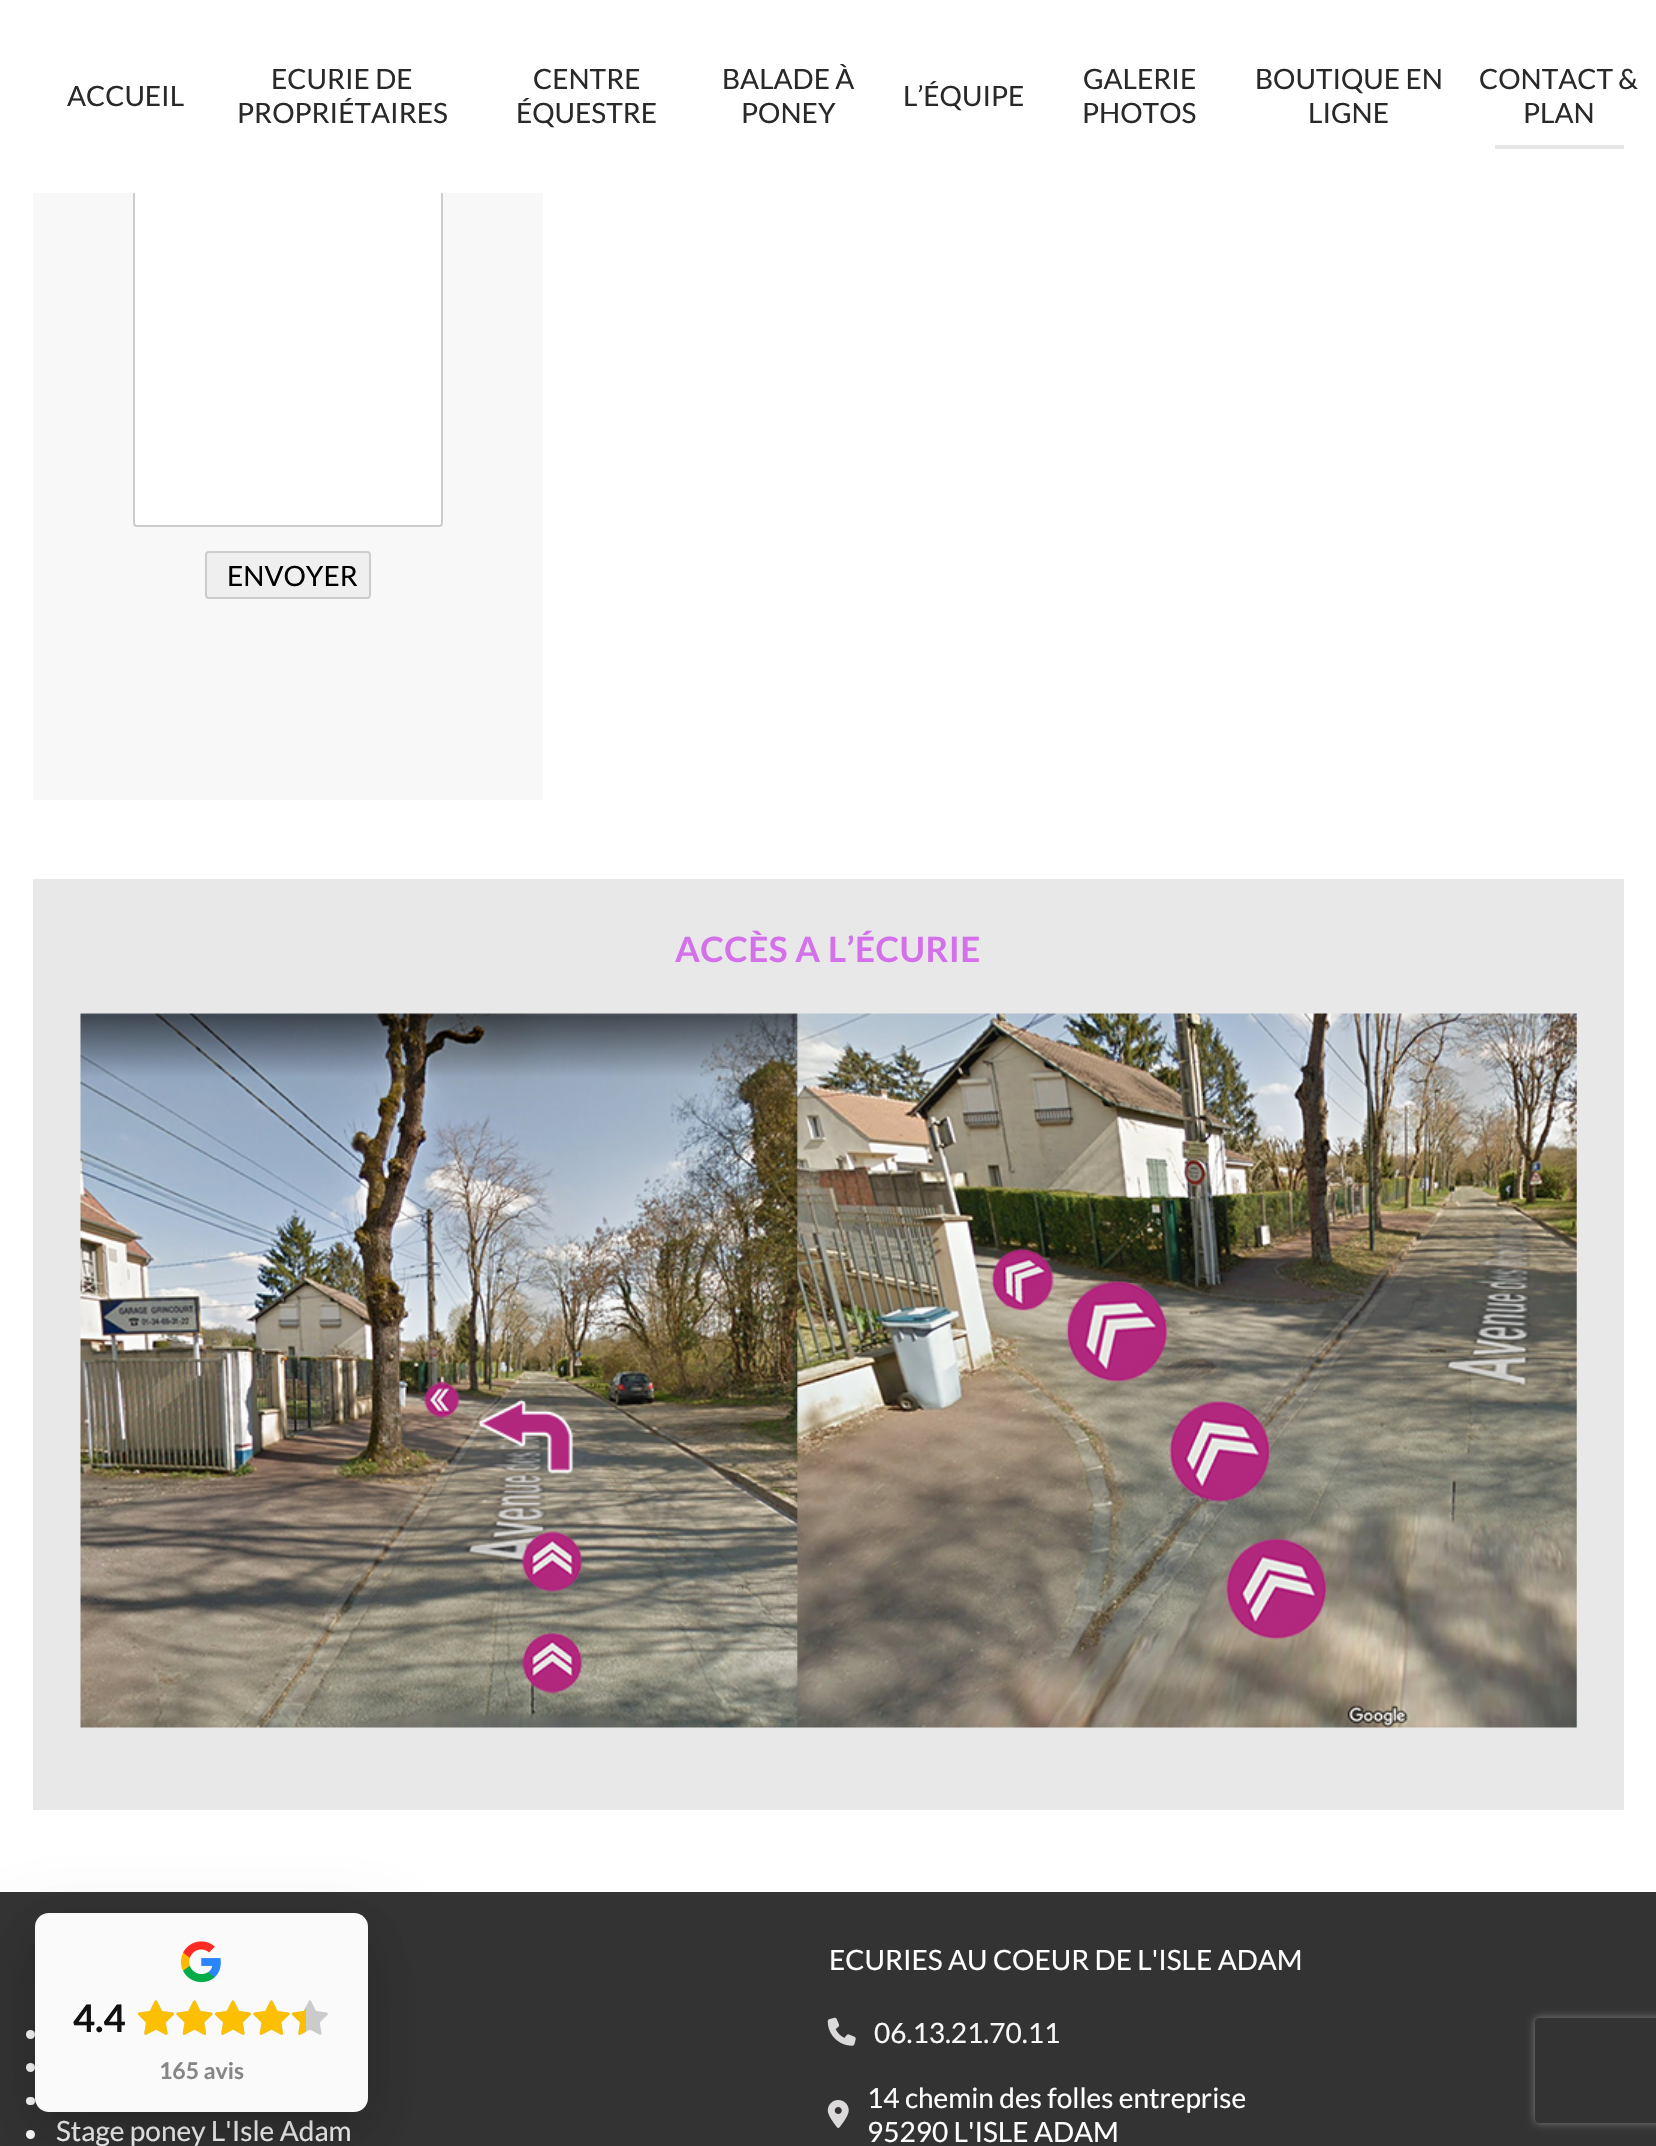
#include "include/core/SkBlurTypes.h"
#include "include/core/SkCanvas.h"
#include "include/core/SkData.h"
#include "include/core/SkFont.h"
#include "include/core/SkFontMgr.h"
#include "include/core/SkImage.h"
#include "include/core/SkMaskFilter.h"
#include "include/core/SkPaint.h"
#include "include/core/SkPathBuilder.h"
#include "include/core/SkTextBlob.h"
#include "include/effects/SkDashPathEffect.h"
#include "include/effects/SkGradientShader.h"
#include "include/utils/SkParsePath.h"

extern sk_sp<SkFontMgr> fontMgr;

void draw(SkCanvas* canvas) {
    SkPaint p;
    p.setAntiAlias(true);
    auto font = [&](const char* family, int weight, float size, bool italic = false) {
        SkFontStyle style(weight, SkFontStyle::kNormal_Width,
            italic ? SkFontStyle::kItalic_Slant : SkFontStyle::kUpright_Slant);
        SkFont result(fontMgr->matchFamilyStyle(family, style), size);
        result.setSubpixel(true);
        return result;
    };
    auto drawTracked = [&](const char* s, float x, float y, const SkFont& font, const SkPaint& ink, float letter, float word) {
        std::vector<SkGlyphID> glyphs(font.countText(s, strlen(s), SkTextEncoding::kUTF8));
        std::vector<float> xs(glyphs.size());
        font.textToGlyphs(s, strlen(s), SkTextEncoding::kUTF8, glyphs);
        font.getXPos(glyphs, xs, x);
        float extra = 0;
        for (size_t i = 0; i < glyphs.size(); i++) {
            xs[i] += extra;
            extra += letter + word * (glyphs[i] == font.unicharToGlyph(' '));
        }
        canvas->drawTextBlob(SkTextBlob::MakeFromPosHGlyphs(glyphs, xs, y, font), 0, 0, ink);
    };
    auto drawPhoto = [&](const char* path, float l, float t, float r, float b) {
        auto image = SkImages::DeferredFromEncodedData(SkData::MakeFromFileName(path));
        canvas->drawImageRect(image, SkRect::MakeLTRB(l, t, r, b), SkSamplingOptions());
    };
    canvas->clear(0xFFFFFFFF);
    p.setColor(0xFFF8F8F8);
    canvas->drawRect(SkRect::MakeLTRB(33, 193, 543, 800), p);
    p.setColor(0xFFFFFFFF);
    canvas->drawRoundRect(SkRect::MakeLTRB(134, 157, 442, 526), 3, 3, p);
    p.setStyle(SkPaint::kStroke_Style);
    p.setStrokeWidth(2);
    p.setColor(0xFFCCCCCC);
    canvas->drawRoundRect(SkRect::MakeLTRB(134, 157, 442, 526), 3, 3, p);
    p.setStyle(SkPaint::kFill_Style);
    p.setColor(0xFFFFFFFF);
    canvas->drawRect(SkRect::MakeLTRB(133, 156, 443, 193), p);
    auto font1 = font("Lato", 400, 28);
    p.setColor(0xFF292929);
    {
        const struct { const char* s; float x, y; } items[] = {
            {"ACCUEIL", 67, 106},
            {"ECURIE DE", 271, 89},
            {"PROPRIÉTAIRES", 237, 123},
            {"CENTRE", 533, 89},
            {"ÉQUESTRE", 516, 123},
            {"BALADE À", 722, 89},
            {"PONEY", 741, 123},
            {"L’ÉQUIPE", 903, 106},
            {"GALERIE", 1083, 89},
            {"PHOTOS", 1082, 123},
            {"BOUTIQUE EN", 1255, 89},
            {"LIGNE", 1308, 123},
            {"CONTACT &", 1479, 89},
            {"PLAN", 1523, 123},
        };
        for (auto [s, x, y] : items) {
            canvas->drawString(s, x, y, font1, p);
        }
    }
    p.setColor(0xFFE6E6E6);
    canvas->drawRect(SkRect::MakeLTRB(1495, 145, 1624, 149), p);
    p.setColor(0xFFEFEFEF);
    canvas->drawRoundRect(SkRect::MakeLTRB(206, 552, 370, 598), 3, 3, p);
    p.setStyle(SkPaint::kStroke_Style);
    p.setColor(0xFFCCCCCC);
    canvas->drawRoundRect(SkRect::MakeLTRB(206, 552, 370, 598), 3, 3, p);
    p.setStyle(SkPaint::kFill_Style);
    p.setColor(0xFF000000);
    canvas->drawString("ENVOYER", 227, 586, font1, p);
    p.setColor(0xFFE8E8E8);
    canvas->drawRect(SkRect::MakeLTRB(33, 879, 1624, 1810), p);
    auto font2 = font("Lato", 700, 35);
    p.setColor(0xFFD570EB);
    drawTracked("ACCÈS A L’ÉCURIE", 675, 962, font2, p, 0.5f, 0);
    drawPhoto("media/1.png", 80, 1013, 1577, 1728);
    p.setColor(0xFF333333);
    canvas->drawRect(SkRect::MakeLTRB(0, 1892, 1656, 2146), p);
    p.setColor(0xFFFFFFFF);
    canvas->drawCircle(30.5f, 2034.5f, 4.5f, p);
    canvas->drawCircle(30.5f, 2067.5f, 4.5f, p);
    canvas->drawRoundRect(SkRect::MakeLTRB(26, 2097, 35, 2105), 4, 4, p);
    canvas->drawCircle(30.5f, 2134.5f, 4.5f, p);
    p.setColor(0xFFF8F8F8);
    canvas->drawString("Stage poney L'Isle Adam", 56, 2141, font1, p);
    p.setColor(0xFFFFFFFF);
    canvas->drawString("ECURIES AU COEUR DE L'ISLE ADAM", 829, 1970, font1, p);
    drawPhoto("media/2.png", 827, 2017, 856, 2046);
    p.setColor(0xFFF8F8F8);
    canvas->drawString("06.13.21.70.11", 874, 2043, font1, p);
    drawPhoto("media/3.png", 827, 2100, 849, 2128);
    p.setColor(0xFFFFFFFF);
    canvas->drawString("14 chemin des folles entreprise", 867, 2108, font1, p);
    canvas->drawString("95290 L'ISLE ADAM", 867, 2142, font1, p);
    canvas->save();
    canvas->clipPath(SkPathBuilder(SkPathFillType::kEvenOdd).moveTo(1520, 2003).lineTo(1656, 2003).lineTo(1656, 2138).lineTo(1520, 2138).close().moveTo(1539, 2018).lineTo(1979, 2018).cubicTo(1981, 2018, 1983, 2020, 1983, 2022).lineTo(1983, 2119).cubicTo(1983, 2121, 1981, 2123, 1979, 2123).lineTo(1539, 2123).cubicTo(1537, 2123, 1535, 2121, 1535, 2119).lineTo(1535, 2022).cubicTo(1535, 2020, 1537, 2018, 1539, 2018).close().detach(), true);
    p.setColor(0xFF808080);
    p.setMaskFilter(SkMaskFilter::MakeBlur(kNormal_SkBlurStyle, 4.5f));
    canvas->drawRoundRect(SkRect::MakeLTRB(1535, 2018, 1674, 2123), 4, 4, p);
    p.setMaskFilter(nullptr);
    canvas->restore();
    p.setColor(0x26000000);
    p.setMaskFilter(SkMaskFilter::MakeBlur(kNormal_SkBlurStyle, 26));
    canvas->drawRoundRect(SkRect::MakeLTRB(35, 1930, 368, 2130), 14, 14, p);
    p.setMaskFilter(nullptr);
    p.setColor(0x1A000000);
    p.setMaskFilter(SkMaskFilter::MakeBlur(kNormal_SkBlurStyle, 35));
    canvas->drawRoundRect(SkRect::MakeLTRB(35, 1939, 368, 2139), 14, 14, p);
    p.setMaskFilter(nullptr);
    p.setColor(0xFFFAFAFA);
    canvas->drawRoundRect(SkRect::MakeLTRB(35, 1913, 368, 2112), 14, 14, p);
    drawPhoto("media/4.png", 180, 1941, 221, 1983);
    auto font3 = font("Lato", 700, 38);
    p.setColor(0xFF111111);
    canvas->drawString("4.4", 73, 2032, font3, p);
    drawPhoto("media/6.png", 138, 2000, 174, 2035);
    drawPhoto("media/5.png", 137, 2000, 174, 2035);
    drawPhoto("media/7.png", 176, 2000, 213, 2035);
    drawPhoto("media/8.png", 176, 2000, 213, 2035);
    drawPhoto("media/6.png", 215, 2000, 251, 2035);
    drawPhoto("media/5.png", 214, 2000, 251, 2035);
    drawPhoto("media/7.png", 253, 2000, 290, 2035);
    drawPhoto("media/8.png", 253, 2000, 290, 2035);
    drawPhoto("media/6.png", 292, 2000, 328, 2035);
    drawPhoto("media/9.png", 291, 2006, 306, 2035);
    auto font4 = font("Lato", 700, 23);
    p.setColor(0xFF868686);
    canvas->drawString("165 avis", 159, 2079, font4, p);
}
